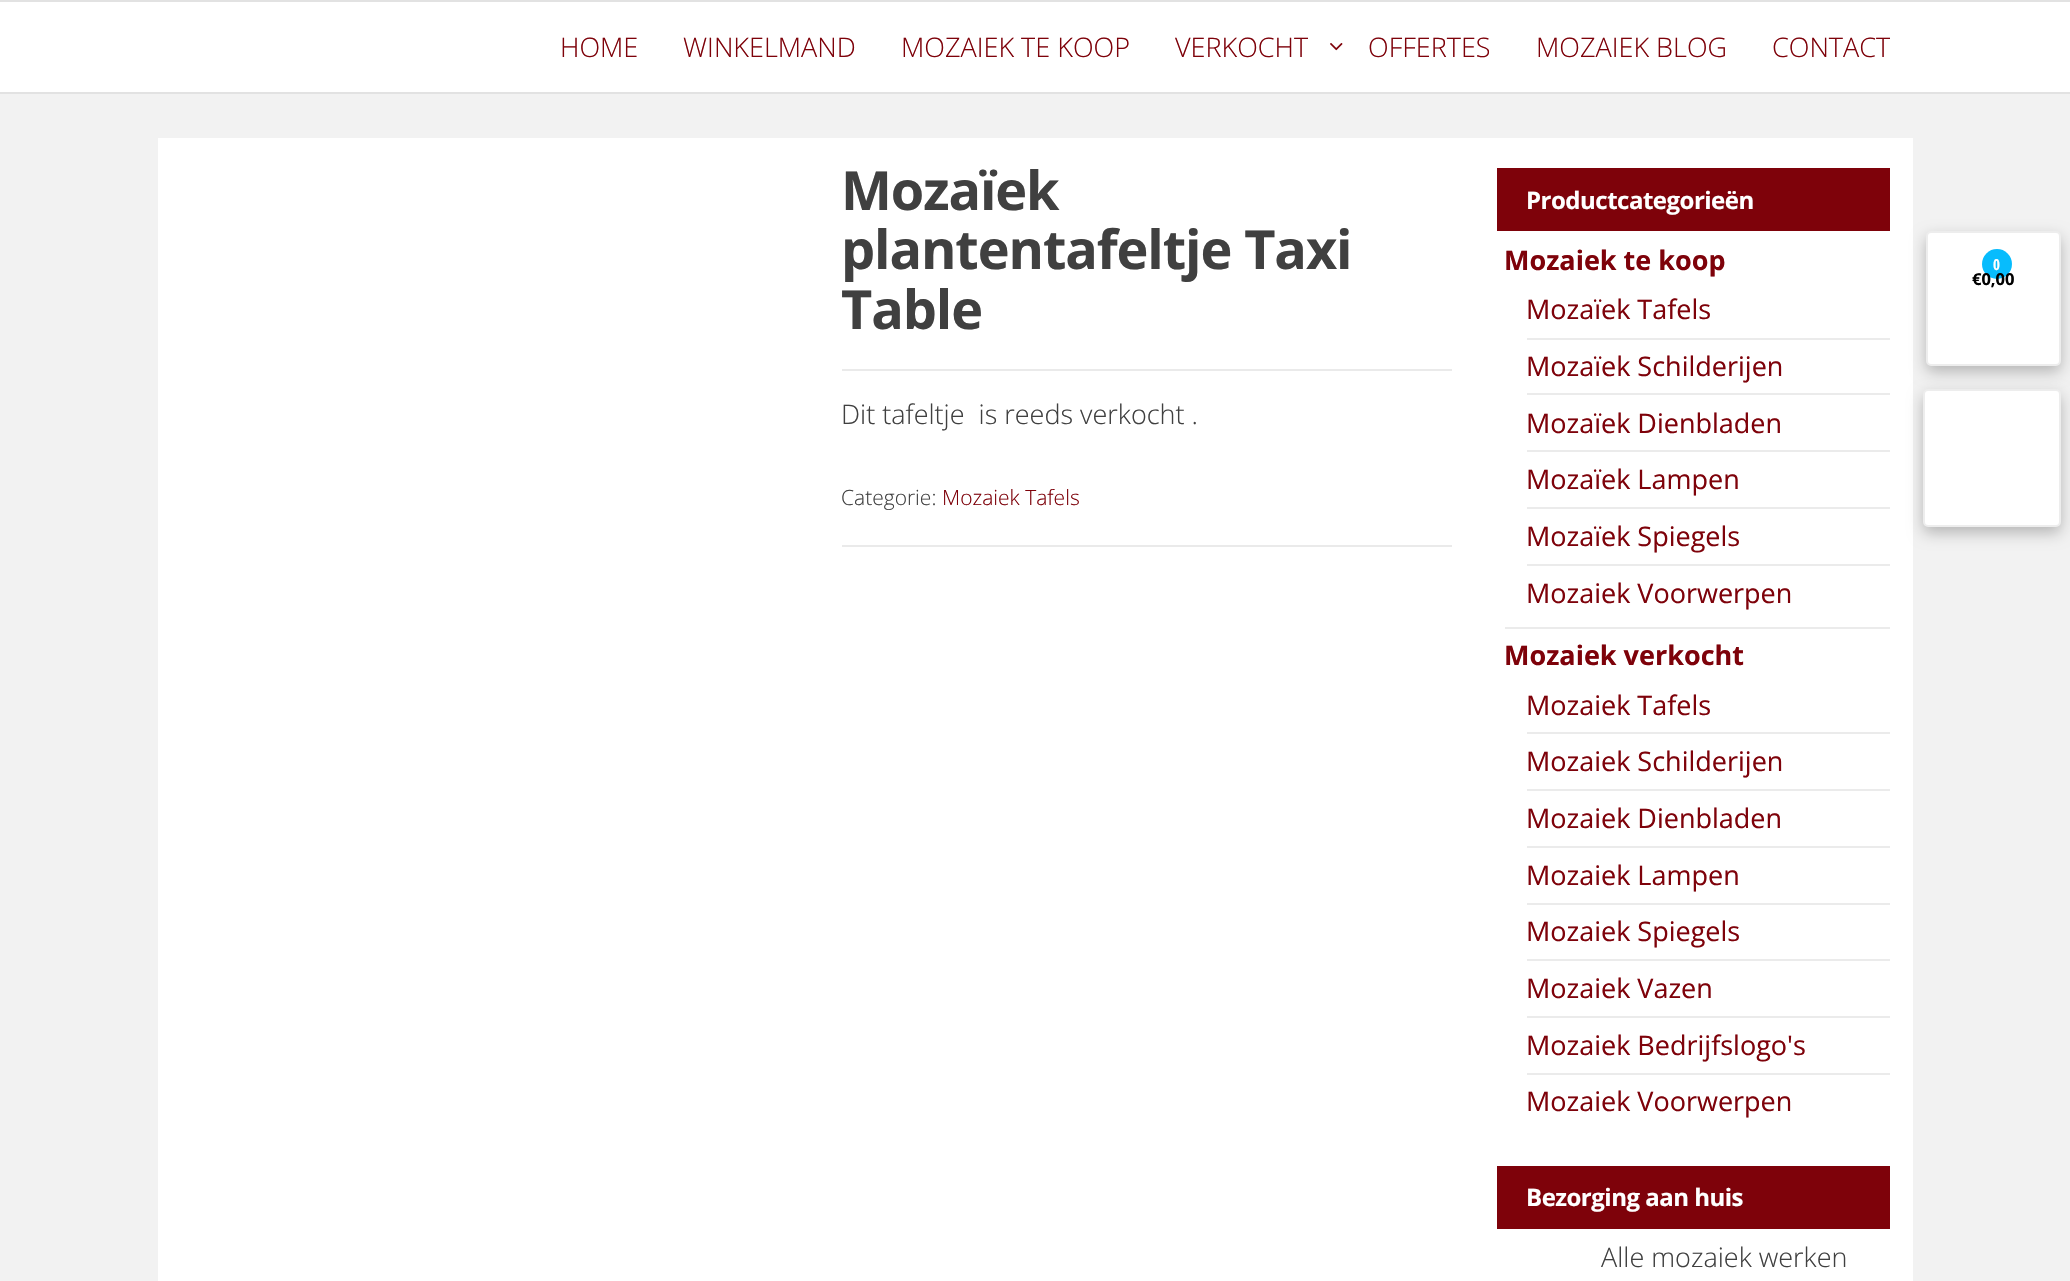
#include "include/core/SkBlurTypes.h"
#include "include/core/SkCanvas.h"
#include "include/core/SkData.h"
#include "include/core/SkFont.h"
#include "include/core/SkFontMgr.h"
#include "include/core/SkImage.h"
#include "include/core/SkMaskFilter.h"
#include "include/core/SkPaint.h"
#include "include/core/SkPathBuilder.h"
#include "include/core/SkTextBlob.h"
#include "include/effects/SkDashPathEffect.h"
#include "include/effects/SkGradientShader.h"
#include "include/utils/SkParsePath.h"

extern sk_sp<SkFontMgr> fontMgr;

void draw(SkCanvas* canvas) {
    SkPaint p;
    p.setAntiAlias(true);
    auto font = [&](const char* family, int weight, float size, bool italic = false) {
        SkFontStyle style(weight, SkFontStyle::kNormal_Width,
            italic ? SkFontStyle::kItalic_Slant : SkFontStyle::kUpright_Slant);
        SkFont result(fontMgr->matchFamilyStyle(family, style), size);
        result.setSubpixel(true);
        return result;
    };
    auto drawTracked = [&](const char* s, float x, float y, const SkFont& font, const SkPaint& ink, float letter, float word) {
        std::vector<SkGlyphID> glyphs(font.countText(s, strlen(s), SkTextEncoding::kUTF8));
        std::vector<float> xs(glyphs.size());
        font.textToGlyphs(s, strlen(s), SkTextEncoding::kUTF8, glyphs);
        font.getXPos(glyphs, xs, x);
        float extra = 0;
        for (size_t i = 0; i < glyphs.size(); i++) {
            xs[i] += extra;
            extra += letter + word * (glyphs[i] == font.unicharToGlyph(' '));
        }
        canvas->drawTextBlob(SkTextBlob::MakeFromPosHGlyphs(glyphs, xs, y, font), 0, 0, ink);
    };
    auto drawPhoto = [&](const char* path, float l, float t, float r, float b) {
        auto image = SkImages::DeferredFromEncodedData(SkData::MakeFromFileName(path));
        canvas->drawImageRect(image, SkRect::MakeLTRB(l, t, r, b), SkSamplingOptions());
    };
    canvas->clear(0xFFF2F2F2);
    {
        const struct { float l, t, r, b; SkColor color; } items[] = {
            {0, 2, 2070, 92, 0xFFFFFFFF},
            {0, 0, 2070, 2, 0xFFE2E2E2},
            {0, 92, 2070, 94, 0xFFE2E2E2},
        };
        for (auto [l, t, r, b, color] : items) {
            p.setColor(color);
            canvas->drawRect(SkRect::MakeLTRB(l, t, r, b), p);
        }
    }
    auto font1 = font("Open Sans", 300, 27);
    p.setColor(0xFF7E020A);
    {
        const struct { const char* s; float x, y; } items[] = {
            {"HOME", 560, 57},
            {"WINKELMAND", 683, 57},
            {"MOZAIEK TE KOOP", 901, 57},
            {"VERKOCHT", 1175, 57},
        };
        for (auto [s, x, y] : items) {
            canvas->drawString(s, x, y, font1, p);
        }
    }
    drawPhoto("media/1.png", 1330, 43, 1343, 51);
    {
        const struct { const char* s; float x, y; } items[] = {
            {"OFFERTES", 1368, 57},
            {"MOZAIEK BLOG", 1536, 57},
            {"CONTACT", 1772, 57},
        };
        for (auto [s, x, y] : items) {
            canvas->drawString(s, x, y, font1, p);
        }
    }
    p.setColor(0xFFFFFFFF);
    canvas->drawRect(SkRect::MakeLTRB(158, 138, 1913, 1281), p);
    p.setColor(0xFFEAEAEA);
    canvas->drawRect(SkRect::MakeLTRB(842, 369, 1452, 371), p);
    auto font2 = font("Open Sans", 700, 54);
    p.setColor(0xFF404040);
    {
        const struct { const char* s; float x, y; } items[] = {
            {"Mozaïek", 841, 210},
            {"plantentafeltje Taxi", 841, 269},
            {"Table", 841, 329},
        };
        for (auto [s, x, y] : items) {
            drawTracked(s, x, y, font2, p, -1.1f, 0);
        }
    }
    canvas->drawString("Dit tafeltje  is reeds verkocht .", 841, 424, font1, p);
    p.setColor(0xFFEAEAEA);
    canvas->drawRect(SkRect::MakeLTRB(842, 545, 1452, 547), p);
    auto font3 = font("Open Sans", 300, 21);
    p.setColor(0xFF404040);
    canvas->drawString("Categorie:", 841, 505, font3, p);
    p.setColor(0xFF7E020A);
    canvas->drawString("Mozaiek Tafels", 942, 505, font3, p);
    canvas->drawRect(SkRect::MakeLTRB(1497, 168, 1890, 231), p);
    auto font4 = font("Open Sans", 700, 24);
    p.setColor(0xFFFFFFFF);
    drawTracked("Productcategorieën", 1526, 209, font4, p, -0.5f, 0);
    p.setColor(0xFFEBEBEB);
    canvas->drawRect(SkRect::MakeLTRB(1505, 627, 1890, 629), p);
    auto font5 = font("Open Sans", 700, 27);
    p.setColor(0xFF7E020A);
    canvas->drawString("Mozaiek te koop", 1504, 270, font5, p);
    p.setColor(0xFFEBEBEB);
    canvas->drawRect(SkRect::MakeLTRB(1527, 338, 1890, 340), p);
    auto font6 = font("Open Sans", 400, 27);
    p.setColor(0xFF7E020A);
    canvas->drawString("Mozaïek Tafels", 1526, 319, font6, p);
    p.setColor(0xFFEBEBEB);
    canvas->drawRect(SkRect::MakeLTRB(1527, 393, 1890, 395), p);
    p.setColor(0xFF7E020A);
    canvas->drawString("Mozaïek Schilderijen", 1526, 376, font6, p);
    p.setColor(0xFFEBEBEB);
    canvas->drawRect(SkRect::MakeLTRB(1527, 450, 1890, 452), p);
    p.setColor(0xFF7E020A);
    canvas->drawString("Mozaïek Dienbladen", 1526, 433, font6, p);
    p.setColor(0xFFEBEBEB);
    canvas->drawRect(SkRect::MakeLTRB(1527, 507, 1890, 509), p);
    p.setColor(0xFF7E020A);
    canvas->drawString("Mozaïek Lampen", 1526, 489, font6, p);
    p.setColor(0xFFEBEBEB);
    canvas->drawRect(SkRect::MakeLTRB(1527, 564, 1890, 566), p);
    p.setColor(0xFF7E020A);
    canvas->drawString("Mozaïek Spiegels", 1526, 546, font6, p);
    canvas->drawString("Mozaiek Voorwerpen", 1526, 603, font6, p);
    canvas->drawString("Mozaiek verkocht", 1504, 665, font5, p);
    p.setColor(0xFFEBEBEB);
    canvas->drawRect(SkRect::MakeLTRB(1527, 732, 1890, 734), p);
    p.setColor(0xFF7E020A);
    canvas->drawString("Mozaiek Tafels", 1526, 715, font6, p);
    p.setColor(0xFFEBEBEB);
    canvas->drawRect(SkRect::MakeLTRB(1527, 789, 1890, 791), p);
    p.setColor(0xFF7E020A);
    canvas->drawString("Mozaiek Schilderijen", 1526, 771, font6, p);
    p.setColor(0xFFEBEBEB);
    canvas->drawRect(SkRect::MakeLTRB(1527, 846, 1890, 848), p);
    p.setColor(0xFF7E020A);
    canvas->drawString("Mozaiek Dienbladen", 1526, 828, font6, p);
    p.setColor(0xFFEBEBEB);
    canvas->drawRect(SkRect::MakeLTRB(1527, 903, 1890, 905), p);
    p.setColor(0xFF7E020A);
    canvas->drawString("Mozaiek Lampen", 1526, 885, font6, p);
    p.setColor(0xFFEBEBEB);
    canvas->drawRect(SkRect::MakeLTRB(1527, 959, 1890, 961), p);
    p.setColor(0xFF7E020A);
    canvas->drawString("Mozaiek Spiegels", 1526, 941, font6, p);
    p.setColor(0xFFEBEBEB);
    canvas->drawRect(SkRect::MakeLTRB(1527, 1016, 1890, 1018), p);
    p.setColor(0xFF7E020A);
    canvas->drawString("Mozaiek Vazen", 1526, 998, font6, p);
    p.setColor(0xFFEBEBEB);
    canvas->drawRect(SkRect::MakeLTRB(1527, 1073, 1890, 1075), p);
    p.setColor(0xFF7E020A);
    canvas->drawString("Mozaiek Bedrijfslogo's", 1526, 1055, font6, p);
    canvas->drawString("Mozaiek Voorwerpen", 1526, 1111, font6, p);
    canvas->drawRect(SkRect::MakeLTRB(1497, 1166, 1890, 1229), p);
    p.setColor(0xFFFFFFFF);
    drawTracked("Bezorging aan huis", 1526, 1206, font4, p, -0.5f, 0);
    p.setColor(0xFF404040);
    canvas->drawString("Alle mozaiek werken", 1601, 1267, font1, p);
    p.setColor(0x40000000);
    p.setMaskFilter(SkMaskFilter::MakeBlur(kNormal_SkBlurStyle, 7.5f));
    canvas->drawRoundRect(SkRect::MakeLTRB(1923, 395, 2061, 533), 5, 5, p);
    p.setMaskFilter(nullptr);
    p.setColor(0xFFFFFFFF);
    canvas->drawRoundRect(SkRect::MakeLTRB(1924, 390, 2060, 526), 4, 4, p);
    p.setStyle(SkPaint::kStroke_Style);
    p.setStrokeWidth(2);
    p.setColor(0xFFEDEDED);
    canvas->drawRoundRect(SkRect::MakeLTRB(1924, 390, 2060, 526), 4, 4, p);
    p.setStyle(SkPaint::kFill_Style);
    p.setColor(0x40000000);
    p.setMaskFilter(SkMaskFilter::MakeBlur(kNormal_SkBlurStyle, 7.5f));
    canvas->drawRoundRect(SkRect::MakeLTRB(1926, 237, 2061, 372), 5, 5, p);
    p.setMaskFilter(nullptr);
    p.setColor(0xFFFFFFFF);
    canvas->drawRoundRect(SkRect::MakeLTRB(1927, 232, 2060, 365), 4, 4, p);
    p.setStyle(SkPaint::kStroke_Style);
    p.setColor(0xFFEDEDED);
    canvas->drawRoundRect(SkRect::MakeLTRB(1927, 232, 2060, 365), 4, 4, p);
    p.setStyle(SkPaint::kFill_Style);
    p.setColor(0xFF07BCFD);
    canvas->drawCircle(1997, 264, 15, p);
    auto font7 = font("Open Sans Condensed", 700, 15);
    p.setColor(0xFFFFFFFF);
    canvas->drawString("0", 1993, 270, font7, p);
    auto font8 = font("Open Sans", 700, 16.5f);
    p.setColor(0xFF000000);
    canvas->drawString("€0,00", 1972, 285, font8, p);
}
